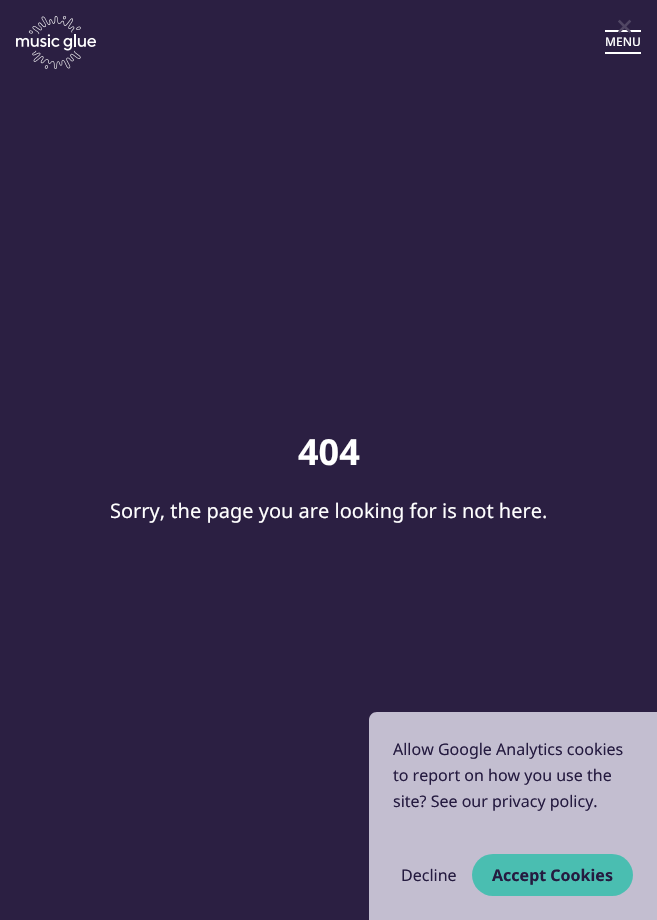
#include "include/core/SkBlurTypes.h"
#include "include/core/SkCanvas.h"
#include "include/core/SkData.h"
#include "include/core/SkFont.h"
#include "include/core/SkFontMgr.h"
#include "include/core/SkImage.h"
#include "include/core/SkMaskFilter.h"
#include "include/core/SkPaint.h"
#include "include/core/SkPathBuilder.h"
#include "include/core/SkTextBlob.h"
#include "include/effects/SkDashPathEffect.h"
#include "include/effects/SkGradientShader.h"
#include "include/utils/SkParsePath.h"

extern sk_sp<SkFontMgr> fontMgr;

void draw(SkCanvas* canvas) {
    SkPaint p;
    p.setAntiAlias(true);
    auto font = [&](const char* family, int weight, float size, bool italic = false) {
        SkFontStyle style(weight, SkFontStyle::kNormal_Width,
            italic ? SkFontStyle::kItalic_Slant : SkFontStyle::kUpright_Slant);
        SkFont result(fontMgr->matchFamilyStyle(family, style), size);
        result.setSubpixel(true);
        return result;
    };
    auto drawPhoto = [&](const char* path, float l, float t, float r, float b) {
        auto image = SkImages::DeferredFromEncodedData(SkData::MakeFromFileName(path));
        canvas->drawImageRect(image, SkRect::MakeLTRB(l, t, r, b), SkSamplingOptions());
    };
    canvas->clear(0xFF2B1F42);
    drawPhoto("media/1.png", 16, 16, 96, 69);
    p.setColor(0xFFFFFFFF);
    canvas->drawRect(SkRect::MakeLTRB(605, 30, 641, 32), p);
    auto font1 = font("Noto Sans", 500, 30);
    p.setColor(0xFF504663);
    canvas->drawString("×", 616, 37, font1, p);
    auto font2 = font("Noto Sans", 500, 12);
    p.setColor(0xFFFFFFFF);
    canvas->drawString("MENU", 605, 46, font2, p);
    canvas->drawRect(SkRect::MakeLTRB(605, 52, 641, 54), p);
    auto font3 = font("Noto Sans", 700, 36);
    canvas->drawString("404", 298, 465, font3, p);
    auto font4 = font("Noto Sans", 400, 20);
    canvas->drawString("Sorry, the page you are looking for is not here.", 110, 518, font4, p);
    p.setColor(0xFFC3BED0);
    canvas->drawPath(SkPathBuilder().moveTo(377, 712).lineTo(657, 712).lineTo(657, 920).lineTo(369, 920).lineTo(369, 720).cubicTo(369, 715.5f, 372.5f, 712, 377, 712).close().detach(), p);
    auto font5 = font("Noto Sans", 400, 16);
    p.setColor(0xFF251B40);
    {
        const struct { const char* s; float x, y; } items[] = {
            {"Allow Google Analytics cookies", 393, 755},
            {"to report on how you use the", 393, 781},
            {"site? See our privacy policy.", 393, 807},
            {"Decline", 401, 881},
        };
        for (auto [s, x, y] : items) {
            canvas->drawString(s, x, y, font5, p);
        }
    }
    p.setColor(0xFF4ABEB1);
    canvas->drawRoundRect(SkRect::MakeLTRB(472, 854, 633, 896), 21, 21, p);
    auto font6 = font("Noto Sans", 700, 16);
    p.setColor(0xFF251B40);
    canvas->drawString("Accept Cookies", 492, 881, font6, p);
}
